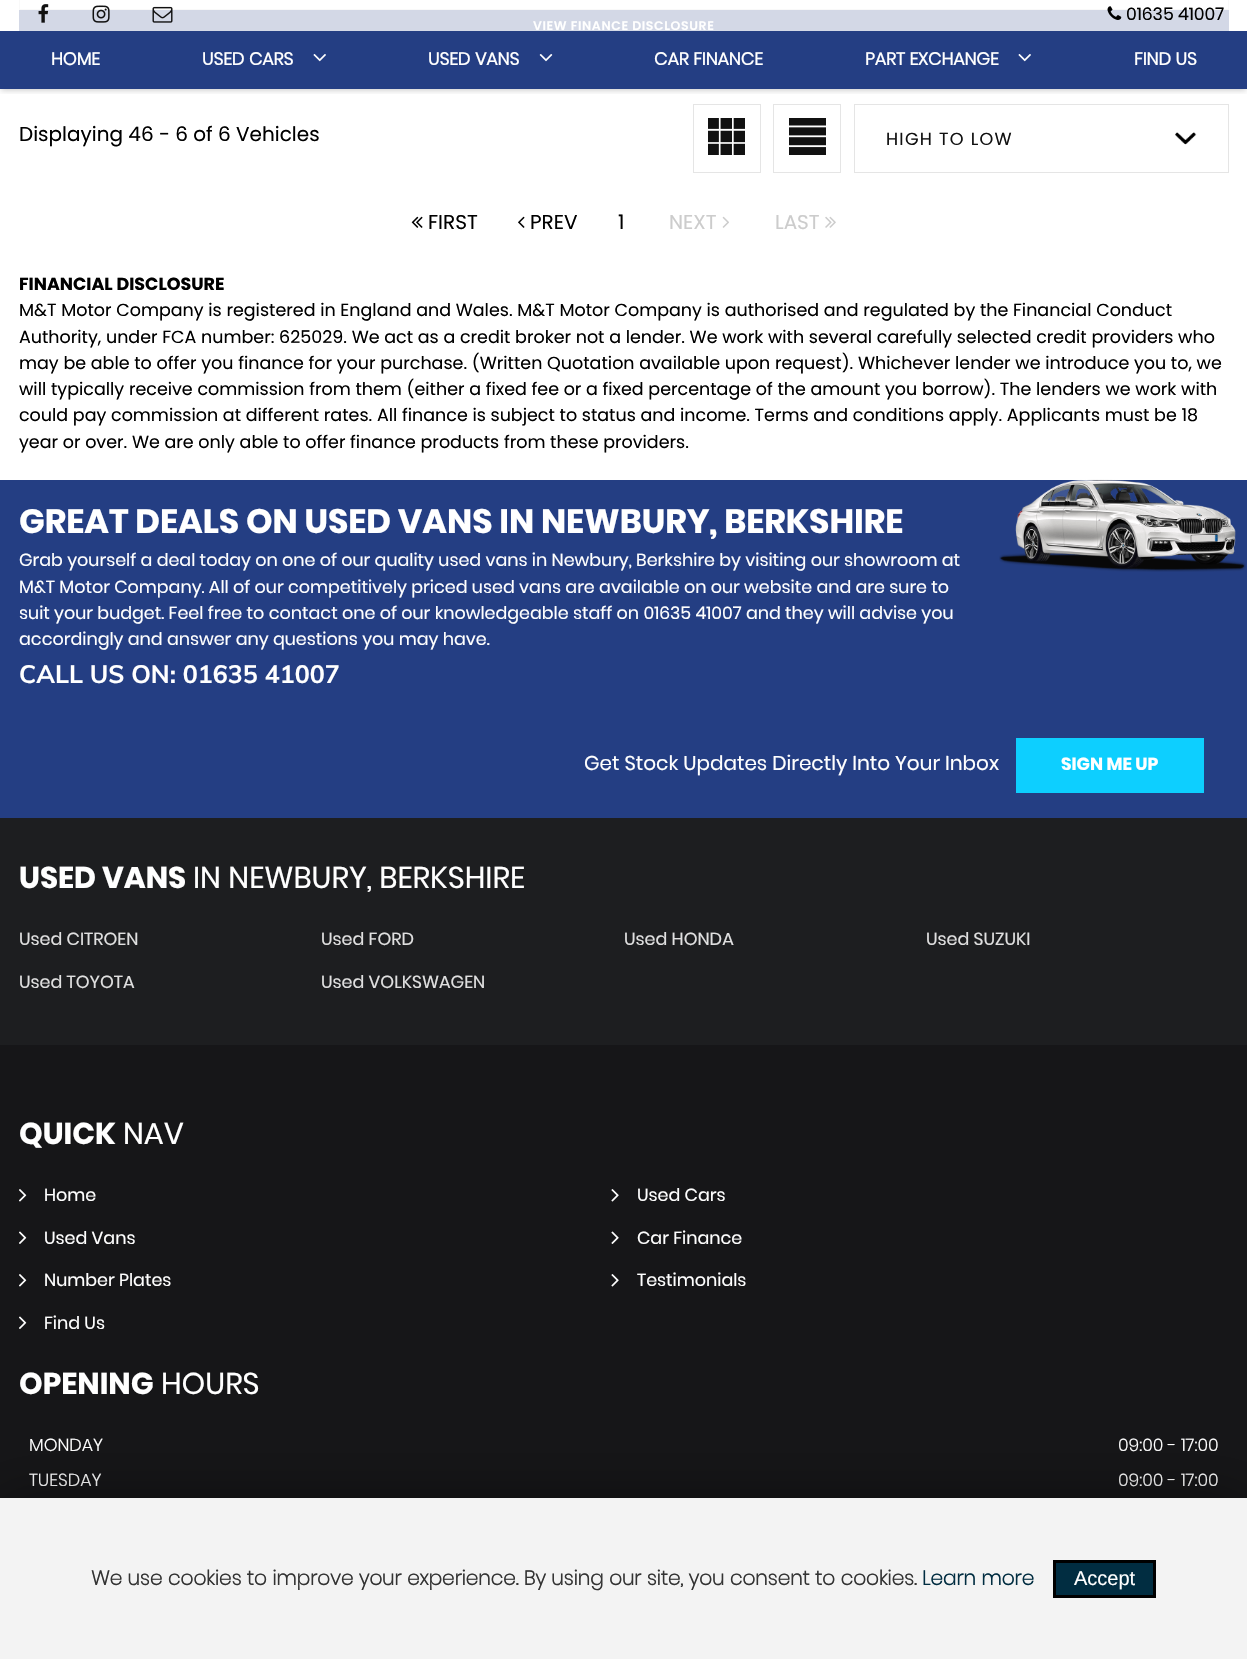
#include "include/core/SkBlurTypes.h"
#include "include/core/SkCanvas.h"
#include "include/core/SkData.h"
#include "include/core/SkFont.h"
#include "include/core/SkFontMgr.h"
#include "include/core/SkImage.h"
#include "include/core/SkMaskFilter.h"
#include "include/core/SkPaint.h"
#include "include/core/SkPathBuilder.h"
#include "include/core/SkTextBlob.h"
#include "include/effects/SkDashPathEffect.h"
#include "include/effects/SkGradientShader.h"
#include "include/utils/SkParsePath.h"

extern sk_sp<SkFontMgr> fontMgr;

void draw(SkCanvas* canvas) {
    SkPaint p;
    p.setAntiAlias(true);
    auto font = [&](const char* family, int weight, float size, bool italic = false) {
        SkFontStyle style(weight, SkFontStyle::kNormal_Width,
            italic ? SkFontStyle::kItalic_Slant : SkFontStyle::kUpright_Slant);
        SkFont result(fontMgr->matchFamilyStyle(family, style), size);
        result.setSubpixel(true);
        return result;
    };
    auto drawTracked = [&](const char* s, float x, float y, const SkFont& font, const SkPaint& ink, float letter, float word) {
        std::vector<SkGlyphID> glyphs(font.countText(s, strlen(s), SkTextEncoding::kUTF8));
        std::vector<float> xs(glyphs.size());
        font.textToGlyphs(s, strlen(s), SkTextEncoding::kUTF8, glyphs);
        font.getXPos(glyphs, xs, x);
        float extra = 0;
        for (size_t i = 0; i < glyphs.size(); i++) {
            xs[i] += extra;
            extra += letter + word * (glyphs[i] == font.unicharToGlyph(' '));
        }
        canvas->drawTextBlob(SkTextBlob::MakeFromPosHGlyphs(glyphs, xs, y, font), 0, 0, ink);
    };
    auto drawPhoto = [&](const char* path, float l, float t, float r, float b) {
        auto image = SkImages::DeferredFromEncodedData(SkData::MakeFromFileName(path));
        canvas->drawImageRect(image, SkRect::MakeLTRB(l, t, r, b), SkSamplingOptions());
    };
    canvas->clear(0xFFFFFFFF);
    p.setStyle(SkPaint::kStroke_Style);
    p.setStrokeWidth(1);
    p.setColor(0xFFF9F9F9);
    canvas->drawRect(SkRect::MakeLTRB(19.5f, -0.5f, 1228.5f, 9.5f), p);
    p.setStyle(SkPaint::kFill_Style);
    p.setColor(0xFFD3D8E6);
    canvas->drawRect(SkRect::MakeLTRB(19, 10, 1229, 31), p);
    canvas->save();
    canvas->clipRect(SkRect::MakeLTRB(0, 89, 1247, 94));
    p.setColor(0x38000000);
    p.setMaskFilter(SkMaskFilter::MakeBlur(kNormal_SkBlurStyle, 3));
    canvas->drawRect(SkRect::MakeLTRB(1, 4, 1246, 90), p);
    p.setMaskFilter(nullptr);
    canvas->restore();
    drawPhoto("media/1.png", 38, 4, 49, 23);
    drawPhoto("media/2.png", 92, 5, 110, 23);
    drawPhoto("media/3.png", 152, 6, 173, 23);
    drawPhoto("media/4.png", 1107, 6, 1122, 20);
    auto font1 = font("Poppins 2", 400, 17.5f);
    p.setColor(0xFF000000);
    canvas->drawString("01635 41007", 1126, 20, font1, p);
    p.setColor(0xFF243E83);
    canvas->drawRect(SkRect::MakeLTRB(0, 31, 1247, 89), p);
    auto font2 = font("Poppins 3", 700, 17.5f);
    p.setColor(0xFFFFFFFF);
    canvas->drawString("HOME", 51, 65, font2, p);
    canvas->drawString("USED CARS", 202, 65, font2, p);
    drawPhoto("media/5.png", 313, 54, 326, 62);
    canvas->drawString("USED VANS", 428, 65, font2, p);
    drawPhoto("media/6.png", 539, 54, 553, 62);
    canvas->drawString("CAR FINANCE", 654, 65, font2, p);
    canvas->drawString("PART EXCHANGE", 865, 65, font2, p);
    drawPhoto("media/5.png", 1018, 54, 1031, 62);
    canvas->drawString("FIND US", 1134, 65, font2, p);
    auto font3 = font("Poppins", 600, 12.5f);
    drawTracked("VIEW FINANCE DISCLOSURE", 533, 30, font3, p, 0.6f, 0);
    auto font4 = font("Poppins", 400, 20);
    p.setColor(0xFF000000);
    canvas->drawString("Displaying 46 - 6 of 6 Vehicles", 19, 141, font4, p);
    p.setStyle(SkPaint::kStroke_Style);
    p.setColor(0xFFE5E5E5);
    canvas->drawRect(SkRect::MakeLTRB(693.5f, 104.5f, 760.5f, 172.5f), p);
    drawPhoto("media/7.png", 708, 118, 745, 155);
    canvas->drawRect(SkRect::MakeLTRB(773.5f, 104.5f, 840.5f, 172.5f), p);
    drawPhoto("media/8.png", 789, 118, 826, 155);
    canvas->drawRect(SkRect::MakeLTRB(854.5f, 104.5f, 1228.5f, 172.5f), p);
    auto font5 = font("Poppins", 400, 17.5f);
    p.setStyle(SkPaint::kFill_Style);
    p.setColor(0xFF111111);
    drawTracked("HIGH TO LOW", 886, 145, font5, p, 1.25f, 0);
    drawPhoto("media/9.png", 1175, 132, 1197, 145);
    drawPhoto("media/10.png", 411, 216, 423, 228);
    p.setColor(0xFF000000);
    canvas->drawString("FIRST", 428, 229, font4, p);
    drawPhoto("media/11.png", 518, 216, 525, 228);
    canvas->drawString("PREV", 530, 229, font4, p);
    canvas->drawString("1", 618, 229, font4, p);
    p.setColor(0xFFCCCCCC);
    canvas->drawString("NEXT", 669, 229, font4, p);
    drawPhoto("media/12.png", 722, 216, 729, 228);
    canvas->drawString("LAST", 775, 229, font4, p);
    drawPhoto("media/13.png", 825, 216, 836, 228);
    auto font6 = font("Poppins", 700, 17.5f);
    p.setColor(0xFF000000);
    canvas->drawString("FINANCIAL DISCLOSURE", 19, 290, font6, p);
    {
        const struct { const char* s; float x, y; } items[] = {
            {"M&T Motor Company is registered in England and Wales. M&T Motor Company is authorised and regulated by the Financial Conduct", 19, 316},
            {"Authority, under FCA number: 625029. We act as a credit broker not a lender. We work with several carefully selected credit providers who", 19, 343},
            {"may be able to offer you finance for your purchase. (Written Quotation available upon request). Whichever lender we introduce you to, we", 19, 369},
            {"will typically receive commission from them (either a fixed fee or a fixed percentage of the amount you borrow). The lenders we work with", 19, 395},
            {"could pay commission at different rates. All finance is subject to status and income. Terms and conditions apply. Applicants must be 18", 19, 421},
            {"year or over. We are only able to offer finance products from these providers.", 19, 448},
        };
        for (auto [s, x, y] : items) {
            canvas->drawString(s, x, y, font5, p);
        }
    }
    p.setColor(0xFF243E83);
    canvas->drawRect(SkRect::MakeLTRB(0, 480, 1247, 818), p);
    auto font7 = font("Poppins 2", 700, 33.75f);
    p.setColor(0xFFFFFFFF);
    canvas->drawString("GREAT DEALS ON USED VANS IN NEWBURY, BERKSHIRE", 19, 533, font7, p);
    {
        const struct { const char* s; float x, y; } items[] = {
            {"Grab yourself a deal today on one of our quality used vans in Newbury, Berkshire by visiting our showroom at", 19, 566},
            {"M&T Motor Company. All of our competitively priced used vans are available on our website and are sure to", 19, 593},
            {"suit your budget. Feel free to contact one of our knowledgeable staff on 01635 41007 and they will advise you", 19, 619},
            {"accordingly and answer any questions you may have.", 19, 645},
        };
        for (auto [s, x, y] : items) {
            canvas->drawString(s, x, y, font1, p);
        }
    }
    auto font8 = font("Muli", 700, 25);
    canvas->drawString("CALL US ON: 01635 41007", 19, 683, font8, p);
    drawPhoto("media/14.png", 999, 479, 1246, 572);
    auto font9 = font("Poppins 2", 400, 20);
    canvas->drawString("Get Stock Updates Directly Into Your Inbox", 584, 770, font9, p);
    p.setColor(0xFF0DCFFF);
    canvas->drawRect(SkRect::MakeLTRB(1016, 738, 1204, 793), p);
    auto font10 = font("Poppins 2", 700, 17.5f);
    p.setColor(0xFFFFFFFF);
    canvas->drawString("SIGN ME UP", 1061, 770, font10, p);
    p.setColor(0xFF1D1E20);
    canvas->drawRect(SkRect::MakeLTRB(0, 818, 1247, 1045), p);
    auto font11 = font("Poppins 2", 700, 30);
    p.setColor(0xFFFFFFFF);
    canvas->drawString("USED VANS", 19, 888, font11, p);
    auto font12 = font("Poppins 2", 400, 30);
    canvas->drawString("IN NEWBURY, BERKSHIRE", 193, 888, font12, p);
    p.setColor(0xFFE0E0E0);
    {
        const struct { const char* s; float x, y; } items[] = {
            {"Used CITROEN", 19, 945},
            {"Used FORD", 321, 945},
            {"Used HONDA", 624, 945},
            {"Used SUZUKI", 926, 945},
            {"Used TOYOTA", 19, 988},
            {"Used VOLKSWAGEN", 321, 988},
        };
        for (auto [s, x, y] : items) {
            canvas->drawString(s, x, y, font1, p);
        }
    }
    p.setColor(0xFF161618);
    canvas->drawRect(SkRect::MakeLTRB(0, 1045, 1247, 1498), p);
    p.setColor(0xFFF3F3F3);
    canvas->drawRect(SkRect::MakeLTRB(0, 1498, 1247, 1659), p);
    p.setColor(0xFFFFFFFF);
    canvas->drawString("QUICK", 19, 1144, font11, p);
    canvas->drawString("NAV", 123, 1144, font12, p);
    drawPhoto("media/15.png", 19, 1189, 27, 1202);
    canvas->drawString("Home", 44, 1201, font1, p);
    drawPhoto("media/16.png", 611, 1189, 619, 1202);
    canvas->drawString("Used Cars", 637, 1201, font1, p);
    drawPhoto("media/17.png", 19, 1231, 27, 1244);
    canvas->drawString("Used Vans", 44, 1244, font1, p);
    drawPhoto("media/18.png", 611, 1231, 619, 1244);
    canvas->drawString("Car Finance", 637, 1244, font1, p);
    drawPhoto("media/15.png", 19, 1274, 27, 1287);
    canvas->drawString("Number Plates", 44, 1286, font1, p);
    drawPhoto("media/16.png", 611, 1274, 619, 1287);
    canvas->drawString("Testimonials", 637, 1286, font1, p);
    drawPhoto("media/17.png", 19, 1316, 27, 1329);
    canvas->drawString("Find Us", 44, 1329, font1, p);
    canvas->drawString("OPENING", 19, 1394, font11, p);
    canvas->drawString("HOURS", 161, 1394, font12, p);
    auto font13 = font("Poppins", 300, 17.5f);
    {
        const struct { const char* s; float x, y; } items[] = {
            {"MONDAY", 29, 1451},
            {"09:00 - 17:00", 1118, 1451},
            {"TUESDAY", 29, 1486},
            {"09:00 - 17:00", 1118, 1486},
        };
        for (auto [s, x, y] : items) {
            canvas->drawString(s, x, y, font13, p);
        }
    }
    canvas->save();
    canvas->clipRect(SkRect::MakeLTRB(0, 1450, 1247, 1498));
    p.setColor(0x80000000);
    p.setMaskFilter(SkMaskFilter::MakeBlur(kNormal_SkBlurStyle, 31));
    canvas->drawRect(SkRect::MakeLTRB(0, 1504, 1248, 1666), p);
    p.setMaskFilter(nullptr);
    canvas->restore();
    auto font14 = font("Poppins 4", 700, 20);
    p.setColor(0xFF333333);
    canvas->drawString("We use cookies to improve your experience. By using our site, you consent to cookies.", 91, 1585, font14, p);
    p.setColor(0xFF012D41);
    canvas->drawString("Learn more", 922, 1585, font14, p);
    canvas->drawRect(SkRect::MakeLTRB(1054.5f, 1561.5f, 1154.5f, 1596.5f), p);
    p.setStyle(SkPaint::kStroke_Style);
    p.setStrokeWidth(3);
    p.setColor(0xFF000000);
    canvas->drawRect(SkRect::MakeLTRB(1054.5f, 1561.5f, 1154.5f, 1596.5f), p);
    auto font15 = font("Liberation Sans", 400, 20);
    p.setStyle(SkPaint::kFill_Style);
    p.setColor(0xFFFFFFFF);
    canvas->drawString("Accept", 1074, 1585, font15, p);
}
